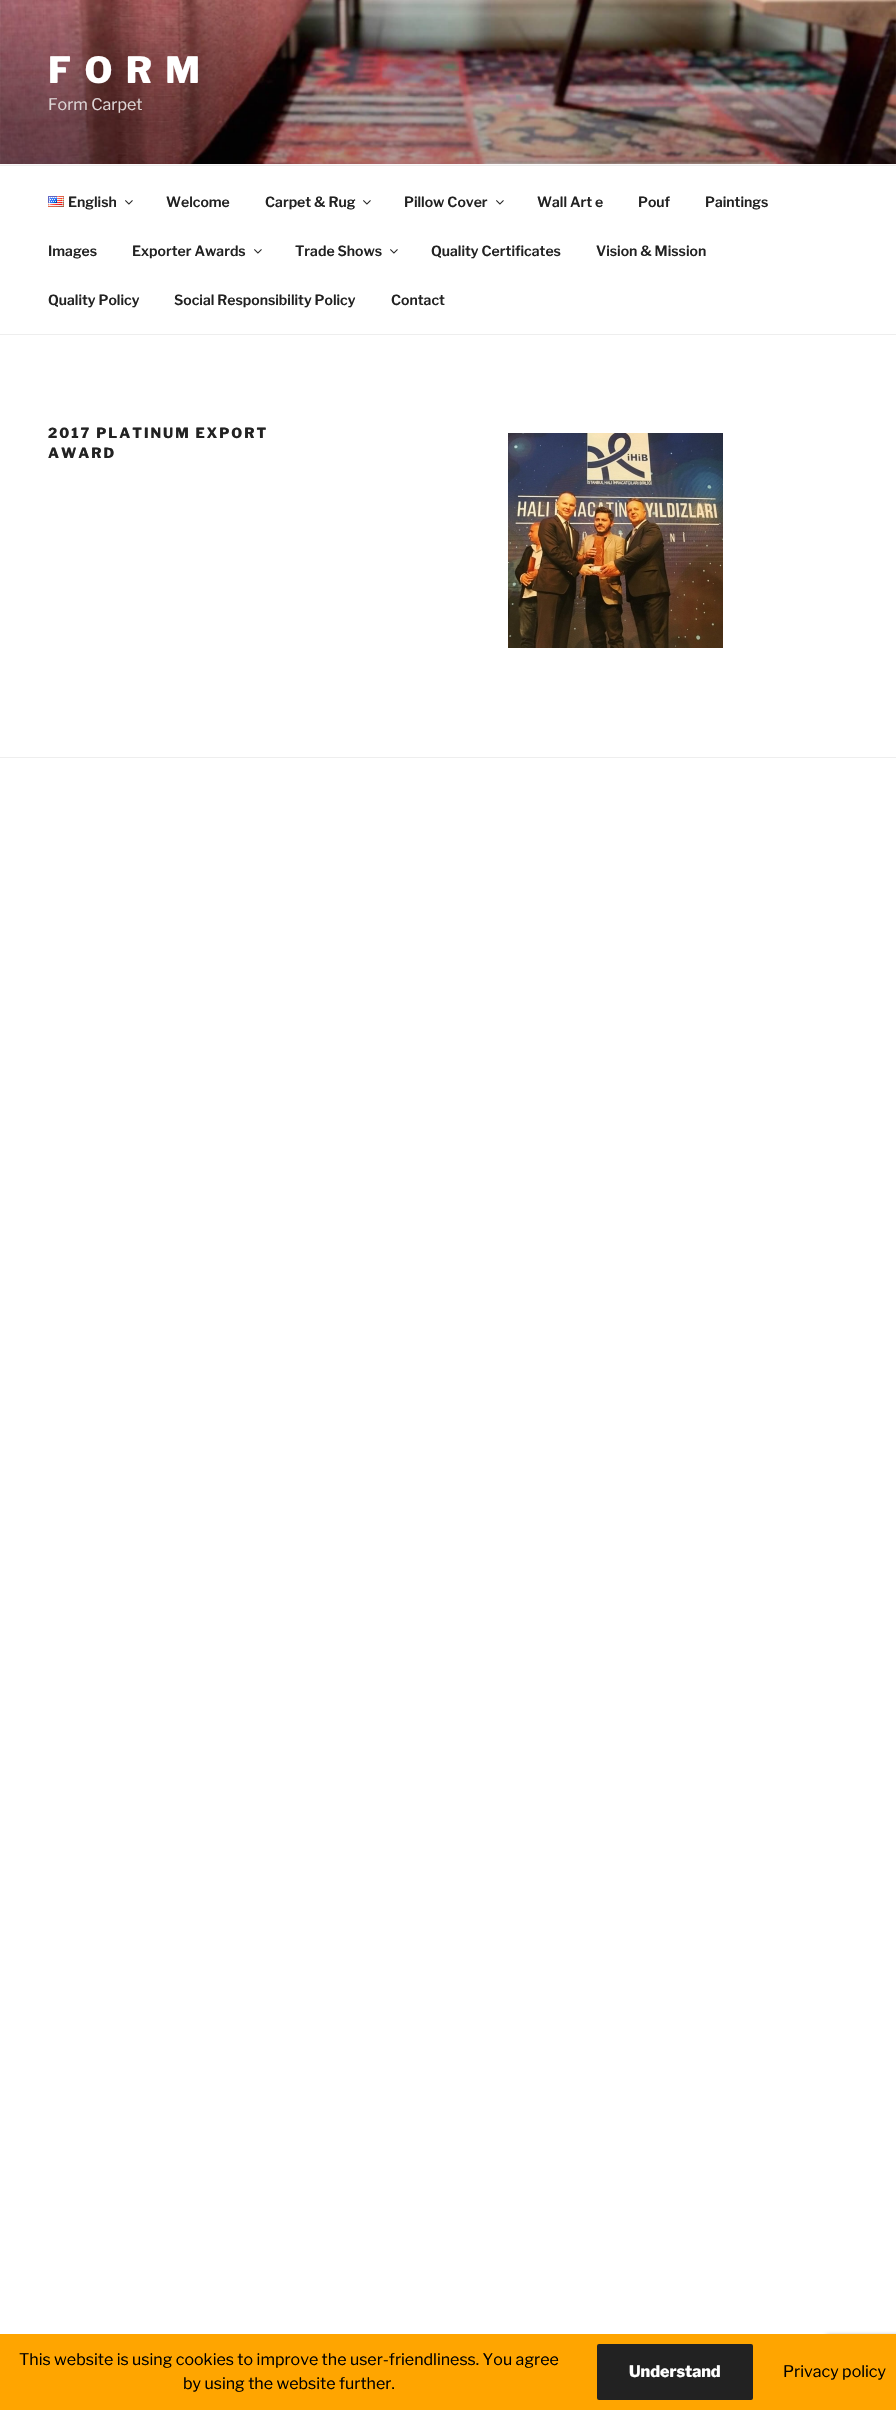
#include "include/core/SkBlurTypes.h"
#include "include/core/SkCanvas.h"
#include "include/core/SkData.h"
#include "include/core/SkFont.h"
#include "include/core/SkFontMgr.h"
#include "include/core/SkImage.h"
#include "include/core/SkMaskFilter.h"
#include "include/core/SkPaint.h"
#include "include/core/SkPathBuilder.h"
#include "include/core/SkTextBlob.h"
#include "include/effects/SkDashPathEffect.h"
#include "include/effects/SkGradientShader.h"
#include "include/utils/SkParsePath.h"

extern sk_sp<SkFontMgr> fontMgr;

void draw(SkCanvas* canvas) {
    SkPaint p;
    p.setAntiAlias(true);
    auto font = [&](const char* family, int weight, float size, bool italic = false) {
        SkFontStyle style(weight, SkFontStyle::kNormal_Width,
            italic ? SkFontStyle::kItalic_Slant : SkFontStyle::kUpright_Slant);
        SkFont result(fontMgr->matchFamilyStyle(family, style), size);
        result.setSubpixel(true);
        return result;
    };
    auto drawTracked = [&](const char* s, float x, float y, const SkFont& font, const SkPaint& ink, float letter, float word) {
        std::vector<SkGlyphID> glyphs(font.countText(s, strlen(s), SkTextEncoding::kUTF8));
        std::vector<float> xs(glyphs.size());
        font.textToGlyphs(s, strlen(s), SkTextEncoding::kUTF8, glyphs);
        font.getXPos(glyphs, xs, x);
        float extra = 0;
        for (size_t i = 0; i < glyphs.size(); i++) {
            xs[i] += extra;
            extra += letter + word * (glyphs[i] == font.unicharToGlyph(' '));
        }
        canvas->drawTextBlob(SkTextBlob::MakeFromPosHGlyphs(glyphs, xs, y, font), 0, 0, ink);
    };
    auto drawPhoto = [&](const char* path, float l, float t, float r, float b) {
        auto image = SkImages::DeferredFromEncodedData(SkData::MakeFromFileName(path));
        canvas->drawImageRect(image, SkRect::MakeLTRB(l, t, r, b), SkSamplingOptions());
    };
    canvas->clear(0xFFFFFFFF);
    p.setColor(0xFFFAFAFA);
    canvas->drawRect(SkRect::MakeLTRB(0, 164, 896, 165), p);
    drawPhoto("media/1.png", 0, 0, 896, 164);
    auto font1 = font("Libre Franklin", 100, 36);
    p.setColor(0xFFFFFFFF);
    drawTracked("F O R M", 48, 83, font1, p, 3, 0);
    auto font2 = font("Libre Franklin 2", 100, 16);
    p.setColor(0xFFDFD7D7);
    canvas->drawString("Form Carpet", 48, 110, font2, p);
    p.setColor(0xFFEEEEEE);
    canvas->drawRect(SkRect::MakeLTRB(0, 165, 896, 166), p);
    canvas->drawRect(SkRect::MakeLTRB(0, 334, 896, 335), p);
    drawPhoto("media/2.png", 48, 196, 64, 207);
    auto font3 = font("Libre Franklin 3", 100, 14);
    p.setColor(0xFF222222);
    canvas->drawString("English", 68, 207, font3, p);
    drawPhoto("media/3.png", 125, 200, 133, 205);
    canvas->drawString("Welcome", 166, 207, font3, p);
    canvas->drawString("Carpet & Rug", 265, 207, font3, p);
    drawPhoto("media/3.png", 363, 200, 371, 205);
    canvas->drawString("Pillow Cover", 404, 207, font3, p);
    drawPhoto("media/3.png", 496, 200, 504, 205);
    {
        const struct { const char* s; float x, y; } items[] = {
            {"Wall Art e", 537, 207},
            {"Pouf", 638, 207},
            {"Paintings", 705, 207},
            {"Images", 48, 256},
            {"Exporter Awards", 132, 256},
        };
        for (auto [s, x, y] : items) {
            canvas->drawString(s, x, y, font3, p);
        }
    }
    drawPhoto("media/3.png", 254, 249, 262, 254);
    canvas->drawString("Trade Shows", 295, 256, font3, p);
    drawPhoto("media/3.png", 390, 249, 398, 254);
    {
        const struct { const char* s; float x, y; } items[] = {
            {"Quality Certificates", 431, 256},
            {"Vision & Mission", 596, 256},
            {"Quality Policy", 48, 305},
            {"Social Responsibility Policy", 174, 305},
            {"Contact", 391, 305},
        };
        for (auto [s, x, y] : items) {
            canvas->drawString(s, x, y, font3, p);
        }
    }
    auto font4 = font("Libre Franklin", 100, 14);
    drawTracked("2017 PLATINUM EXPORT", 48, 438, font4, p, 2, 0);
    drawTracked("AWARD", 48, 458, font4, p, 2, 0);
    drawPhoto("media/4.png", 508, 433, 723, 648);
    p.setColor(0xFFEEEEEE);
    canvas->drawRect(SkRect::MakeLTRB(0, 757, 896, 758), p);
    p.setColor(0xFF808080);
    p.setMaskFilter(SkMaskFilter::MakeBlur(kNormal_SkBlurStyle, 2.5f));
    canvas->drawRoundRect(SkRect::MakeLTRB(826, 2336, 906, 2396), 2, 2, p);
    p.setMaskFilter(nullptr);
    p.setColor(0xFFFFA500);
    canvas->drawRect(SkRect::MakeLTRB(0, 2334, 896, 2410), p);
    p.setColor(0xFF000000);
    canvas->drawString("This website is using cookies to improve the user-friendliness. You agree", 19, 2365, font2, p);
    canvas->drawString("by using the website further.", 183, 2389, font2, p);
    p.setColor(0xFF222222);
    canvas->drawRoundRect(SkRect::MakeLTRB(597, 2344, 753, 2400), 2, 2, p);
    auto font5 = font("Libre Franklin", 100, 16);
    p.setColor(0xFFFFFFFF);
    canvas->drawString("Understand", 629, 2377, font5, p);
    p.setColor(0xFF000000);
    canvas->drawString("Privacy policy", 783, 2377, font2, p);
}
